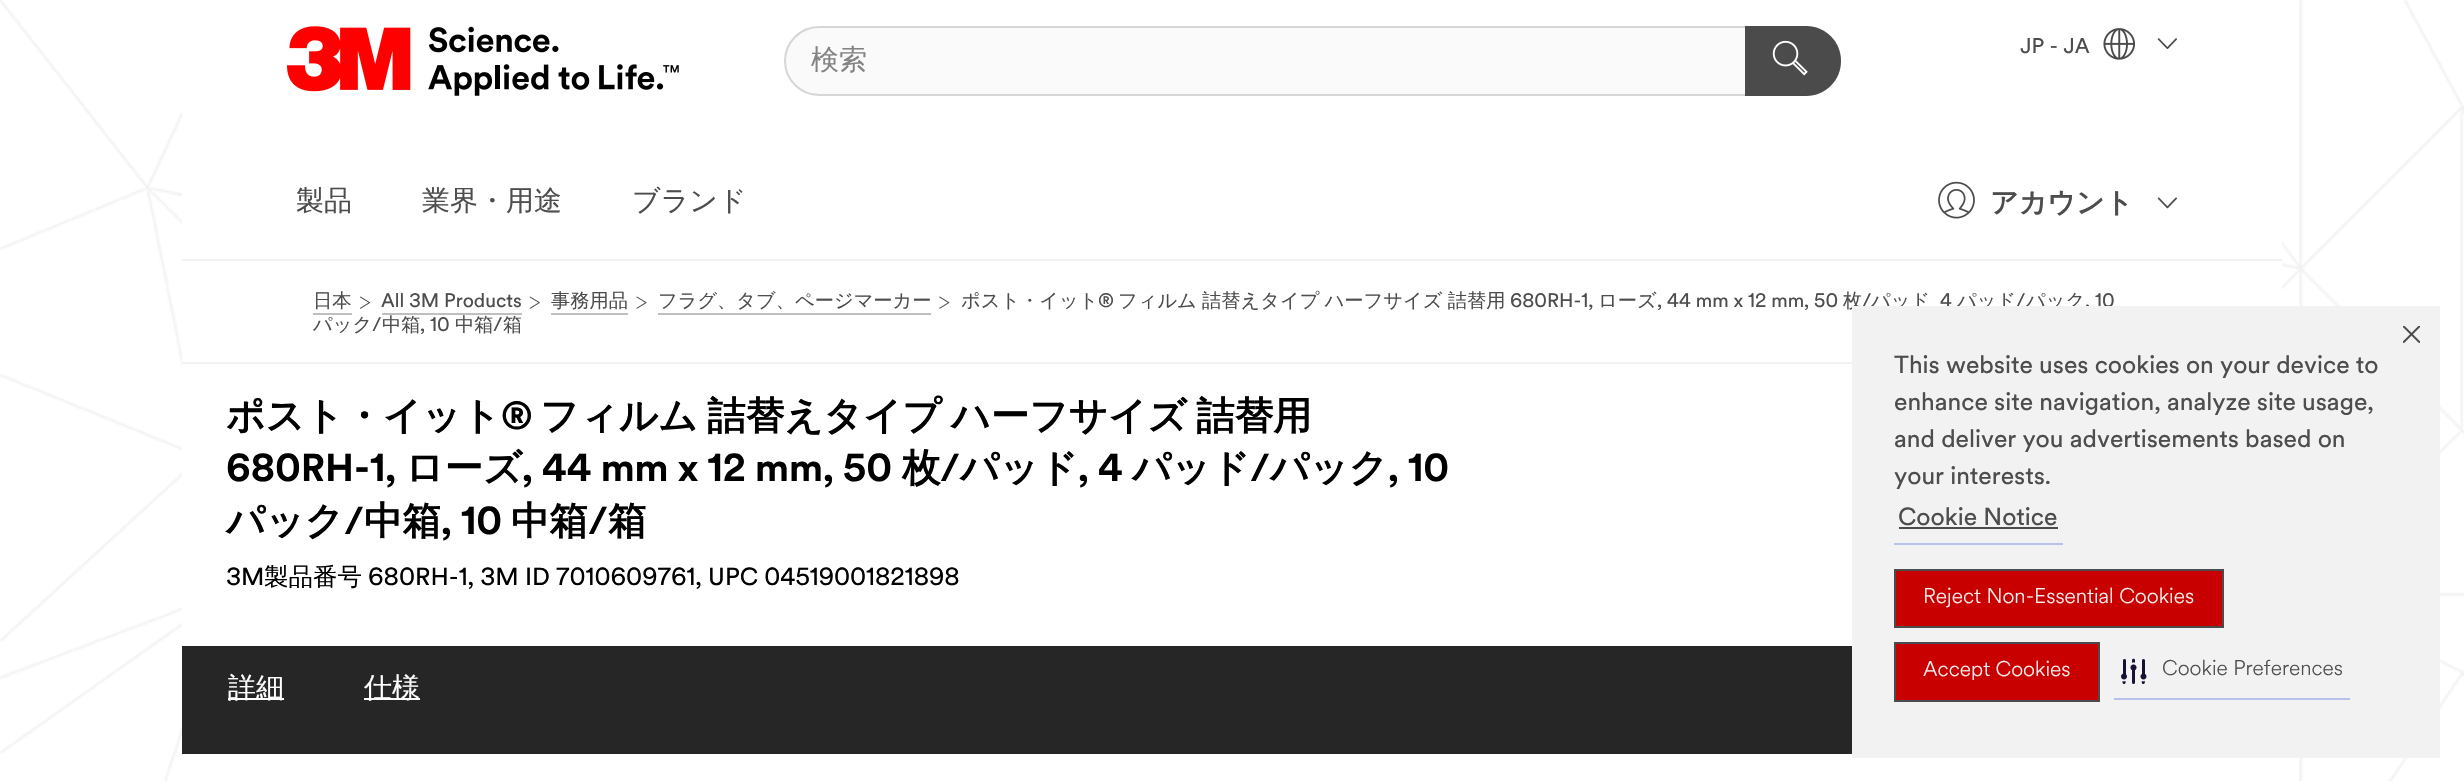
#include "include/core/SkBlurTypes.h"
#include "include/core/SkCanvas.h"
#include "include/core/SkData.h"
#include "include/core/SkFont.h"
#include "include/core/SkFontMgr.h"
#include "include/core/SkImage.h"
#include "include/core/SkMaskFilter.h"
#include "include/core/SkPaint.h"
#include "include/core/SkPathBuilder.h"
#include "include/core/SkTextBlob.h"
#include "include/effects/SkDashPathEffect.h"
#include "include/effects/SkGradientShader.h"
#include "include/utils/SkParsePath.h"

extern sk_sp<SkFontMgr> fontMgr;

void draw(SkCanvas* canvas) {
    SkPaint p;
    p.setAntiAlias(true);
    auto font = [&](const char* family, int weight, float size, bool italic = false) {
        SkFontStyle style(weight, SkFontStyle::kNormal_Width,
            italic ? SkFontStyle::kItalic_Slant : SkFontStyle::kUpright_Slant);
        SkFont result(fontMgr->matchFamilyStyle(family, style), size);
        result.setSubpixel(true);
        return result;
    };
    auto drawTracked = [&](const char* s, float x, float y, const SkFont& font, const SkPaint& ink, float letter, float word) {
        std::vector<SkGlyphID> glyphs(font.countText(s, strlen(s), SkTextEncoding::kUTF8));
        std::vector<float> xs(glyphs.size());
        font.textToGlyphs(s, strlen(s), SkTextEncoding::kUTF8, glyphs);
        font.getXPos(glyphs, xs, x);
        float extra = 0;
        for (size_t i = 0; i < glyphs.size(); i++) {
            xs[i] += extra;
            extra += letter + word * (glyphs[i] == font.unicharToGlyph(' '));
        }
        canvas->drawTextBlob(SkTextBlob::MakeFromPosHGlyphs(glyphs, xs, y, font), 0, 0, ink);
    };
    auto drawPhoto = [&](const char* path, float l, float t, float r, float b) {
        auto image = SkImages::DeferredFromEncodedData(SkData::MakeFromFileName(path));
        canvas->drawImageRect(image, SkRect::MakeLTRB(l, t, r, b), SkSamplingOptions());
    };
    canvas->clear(0xFFFFFFFF);
    drawPhoto("media/1.png", 0, 0, 2464, 781);
    p.setColor(0xFFFFFFFF);
    canvas->drawRect(SkRect::MakeLTRB(182, 0, 2282, 781), p);
    p.setColor(0xFFF2F2F2);
    canvas->drawRect(SkRect::MakeLTRB(182, 259, 2282, 261), p);
    auto font1 = font("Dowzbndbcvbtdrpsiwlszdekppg", 400, 21);
    p.setColor(0xFF4D4D4D);
    canvas->drawString("JP - JA", 2020, 53, font1, p);
    drawPhoto("media/2.png", 2103, 28, 2135, 60);
    drawPhoto("media/3.png", 2157, 38, 2177, 49);
    auto font2 = font("WenQuanYi Zen Hei", 500, 28);
    {
        const struct { const char* s; float x, y; } items[] = {
            {"製品", 296, 210},
            {"業界・用途", 422, 210},
            {"ブランド", 632, 210},
        };
        for (auto [s, x, y] : items) {
            canvas->drawString(s, x, y, font2, p);
        }
    }
    drawPhoto("media/4.png", 1938, 181, 1975, 219);
    auto font3 = font("WenQuanYi Zen Hei", 700, 28);
    canvas->drawString("アカウント", 1990, 212, font3, p);
    drawPhoto("media/5.png", 2157, 197, 2177, 209);
    drawPhoto("media/6.png", 287, 26, 679, 96);
    p.setColor(0xFFFAFAFA);
    canvas->drawRoundRect(SkRect::MakeLTRB(785, 27, 1840, 95), 34, 34, p);
    p.setStyle(SkPaint::kStroke_Style);
    p.setStrokeWidth(2);
    p.setColor(0xFFD6D6D6);
    canvas->drawRoundRect(SkRect::MakeLTRB(785, 27, 1840, 95), 34, 34, p);
    p.setStyle(SkPaint::kFill_Style);
    p.setColor(0xFF838383);
    canvas->drawString("検索", 811, 69, font2, p);
    p.setColor(0xFF4B4B4B);
    canvas->drawPath(SkPathBuilder().moveTo(1745, 26).lineTo(1806, 26).cubicTo(1825.5f, 26, 1841, 41.5f, 1841, 61).cubicTo(1841, 80.5f, 1825.5f, 96, 1806, 96).lineTo(1745, 96).close().detach(), p);
    drawPhoto("media/7.png", 1772, 40, 1808, 76);
    p.setColor(0xFFF2F2F2);
    canvas->drawRect(SkRect::MakeLTRB(182, 362, 1852, 364), p);
    auto font4 = font("WenQuanYi Zen Hei", 500, 19.25f);
    p.setColor(0xFF4D4D4D);
    canvas->drawString("日本", 313, 307, font4, p);
    p.setColor(0xFFBFBFBF);
    canvas->drawRect(SkRect::MakeLTRB(313, 313, 352, 315), p);
    drawPhoto("media/8.png", 360, 296, 370, 309);
    auto font5 = font("Dowzbndbcvbtdrpsiwlszdekppg", 400, 19.25f);
    p.setColor(0xFF4D4D4D);
    canvas->drawString("All 3M Products", 381, 307, font5, p);
    p.setColor(0xFFBFBFBF);
    canvas->drawRect(SkRect::MakeLTRB(382, 313, 522, 315), p);
    drawPhoto("media/9.png", 529, 296, 540, 309);
    p.setColor(0xFF4D4D4D);
    canvas->drawString("事務用品", 551, 307, font4, p);
    p.setColor(0xFFBFBFBF);
    canvas->drawRect(SkRect::MakeLTRB(551, 313, 628, 315), p);
    drawPhoto("media/10.png", 636, 296, 647, 309);
    p.setColor(0xFF4D4D4D);
    canvas->drawString("フラグ、タブ、ページマーカー", 658, 307, font4, p);
    p.setColor(0xFFBFBFBF);
    canvas->drawRect(SkRect::MakeLTRB(658, 313, 931, 315), p);
    drawPhoto("media/11.png", 939, 296, 950, 309);
    p.setColor(0xFF4D4D4D);
    canvas->drawString("ポスト・イット", 961, 307, font4, p);
    canvas->drawString("®", 1098, 307, font5, p);
    drawTracked("フィルム 詰替えタイプ ハーフサイズ 詰替用", 1118, 307, font4, p, 0, -0.5f);
    canvas->drawString("680RH-1,", 1510, 307, font5, p);
    canvas->drawString("ローズ", 1598, 307, font4, p);
    canvas->drawString(", 44 mm x 12 mm, 50", 1657, 307, font5, p);
    canvas->drawString("枚", 1843, 307, font4, p);
    canvas->drawString("/", 1862, 307, font5, p);
    canvas->drawString("パッド", 1871, 307, font4, p);
    canvas->drawString("4", 1940, 307, font5, p);
    canvas->drawString("パッド", 1957, 307, font4, p);
    canvas->drawString("/", 2016, 307, font5, p);
    canvas->drawString("パック", 2026, 307, font4, p);
    canvas->drawString(", 10", 2085, 307, font5, p);
    canvas->drawString("パック", 313, 331, font4, p);
    canvas->drawString("/", 372, 331, font5, p);
    canvas->drawString("中箱", 382, 331, font4, p);
    canvas->drawString(", 10", 420, 331, font5, p);
    canvas->drawString("中箱", 455, 331, font4, p);
    canvas->drawString("/", 493, 331, font5, p);
    canvas->drawString("箱", 503, 331, font4, p);
    auto font6 = font("WenQuanYi Zen Hei", 700, 38.5f);
    p.setColor(0xFF000000);
    canvas->drawString("ポスト・イット", 226, 429, font6, p);
    auto font7 = font("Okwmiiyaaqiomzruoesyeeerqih", 700, 38.5f);
    canvas->drawString("®", 501, 429, font7, p);
    drawTracked("フィルム 詰替えタイプ ハーフサイズ 詰替用", 540, 429, font6, p, 0, -2);
    canvas->drawString("680RH-1,", 226, 481, font7, p);
    canvas->drawString("ローズ", 405, 481, font6, p);
    canvas->drawString(", 44 mm x 12 mm, 50", 522, 481, font7, p);
    canvas->drawString("枚", 902, 481, font6, p);
    canvas->drawString("/", 940, 481, font7, p);
    canvas->drawString("パッド", 960, 481, font6, p);
    canvas->drawString(", 4", 1078, 481, font7, p);
    canvas->drawString("パッド", 1132, 481, font6, p);
    canvas->drawString("/", 1250, 481, font7, p);
    canvas->drawString("パック", 1270, 481, font6, p);
    canvas->drawString(", 10", 1388, 481, font7, p);
    canvas->drawString("パック", 226, 534, font6, p);
    canvas->drawString("/", 344, 534, font7, p);
    canvas->drawString("中箱", 364, 534, font6, p);
    canvas->drawString(", 10", 441, 534, font7, p);
    canvas->drawString("中箱", 511, 534, font6, p);
    canvas->drawString("/", 588, 534, font7, p);
    canvas->drawString("箱", 608, 534, font6, p);
    auto font8 = font("Dowzbndbcvbtdrpsiwlszdekppg", 400, 24.5f);
    canvas->drawString("3M", 226, 585, font8, p);
    auto font9 = font("WenQuanYi Zen Hei", 500, 24.5f);
    canvas->drawString("製品番号", 264, 585, font9, p);
    canvas->drawString("680RH-1, 3M ID 7010609761, UPC 04519001821898", 368, 585, font8, p);
    p.setColor(0xFF262626);
    canvas->drawRect(SkRect::MakeLTRB(182, 646, 1852, 754), p);
    p.setColor(0xFFFFFFFF);
    canvas->drawRect(SkRect::MakeLTRB(228, 698, 284, 700), p);
    canvas->drawString("詳細", 228, 697, font2, p);
    canvas->drawRect(SkRect::MakeLTRB(364, 698, 420, 700), p);
    canvas->drawString("仕様", 364, 697, font2, p);
    p.setColor(0xFFF2F2F2);
    canvas->drawRect(SkRect::MakeLTRB(1852, 306, 2440, 758), p);
    p.setColor(0xFF4D4D4D);
    {
        const struct { const char* s; float x, y; } items[] = {
            {"This website uses cookies on your device to", 1894, 373},
            {"enhance site navigation, analyze site usage,", 1894, 410},
            {"and deliver you advertisements based on", 1894, 447},
            {"your interests.", 1894, 484},
        };
        for (auto [s, x, y] : items) {
            canvas->drawString(s, x, y, font8, p);
        }
    }
    p.setColor(0xFFB6C2E9);
    canvas->drawRect(SkRect::MakeLTRB(1894, 543, 2063, 545), p);
    p.setColor(0xFF4D4D4D);
    canvas->drawString("Cookie Notice", 1898, 525, font8, p);
    p.setColor(0xFF4B4B4B);
    canvas->drawRect(SkRect::MakeLTRB(1899, 527, 2058, 529), p);
    drawPhoto("media/12.png", 2403, 326, 2420, 343);
    p.setColor(0xFFC80000);
    canvas->drawRect(SkRect::MakeLTRB(1895, 570, 2223, 627), p);
    p.setStyle(SkPaint::kStroke_Style);
    p.setColor(0xFF4B4B4B);
    canvas->drawRect(SkRect::MakeLTRB(1895, 570, 2223, 627), p);
    auto font10 = font("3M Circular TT", 300, 21);
    p.setStyle(SkPaint::kFill_Style);
    p.setColor(0xFFF2F2F2);
    canvas->drawString("Reject Non-Essential Cookies", 1923, 603, font10, p);
    p.setColor(0xFFC80000);
    canvas->drawRect(SkRect::MakeLTRB(1895, 643, 2099, 701), p);
    p.setStyle(SkPaint::kStroke_Style);
    p.setColor(0xFF4B4B4B);
    canvas->drawRect(SkRect::MakeLTRB(1895, 643, 2099, 701), p);
    p.setStyle(SkPaint::kFill_Style);
    p.setColor(0xFFF2F2F2);
    canvas->drawString("Accept Cookies", 1923, 676, font10, p);
    p.setColor(0xFFB6C2E9);
    canvas->drawRect(SkRect::MakeLTRB(2114, 698, 2350, 700), p);
    drawPhoto("media/13.png", 2121, 658, 2147, 684);
    p.setColor(0xFF4D4D4D);
    canvas->drawString("Cookie Preferences", 2162, 675, font10, p);
}
